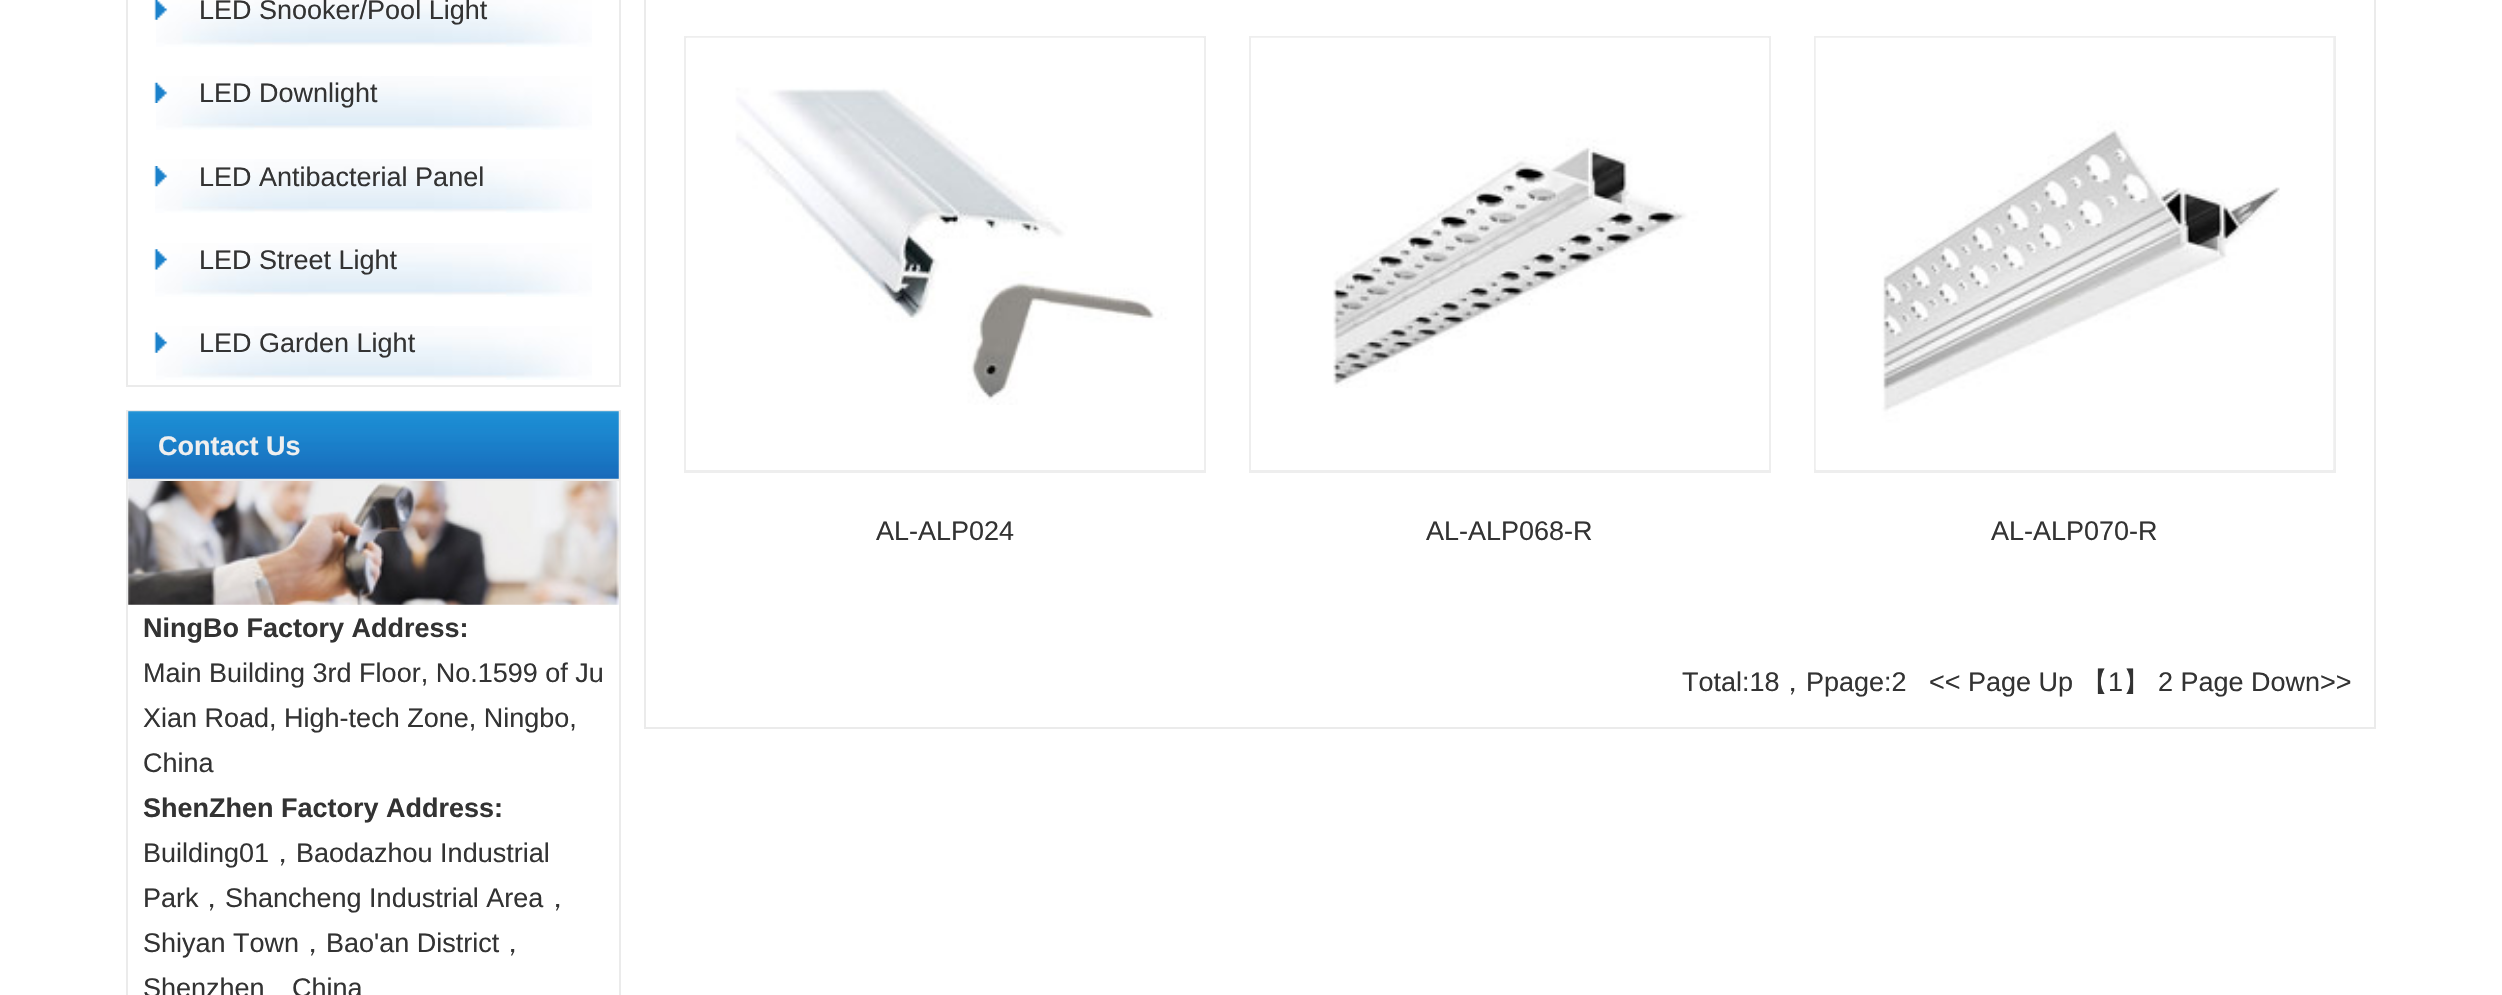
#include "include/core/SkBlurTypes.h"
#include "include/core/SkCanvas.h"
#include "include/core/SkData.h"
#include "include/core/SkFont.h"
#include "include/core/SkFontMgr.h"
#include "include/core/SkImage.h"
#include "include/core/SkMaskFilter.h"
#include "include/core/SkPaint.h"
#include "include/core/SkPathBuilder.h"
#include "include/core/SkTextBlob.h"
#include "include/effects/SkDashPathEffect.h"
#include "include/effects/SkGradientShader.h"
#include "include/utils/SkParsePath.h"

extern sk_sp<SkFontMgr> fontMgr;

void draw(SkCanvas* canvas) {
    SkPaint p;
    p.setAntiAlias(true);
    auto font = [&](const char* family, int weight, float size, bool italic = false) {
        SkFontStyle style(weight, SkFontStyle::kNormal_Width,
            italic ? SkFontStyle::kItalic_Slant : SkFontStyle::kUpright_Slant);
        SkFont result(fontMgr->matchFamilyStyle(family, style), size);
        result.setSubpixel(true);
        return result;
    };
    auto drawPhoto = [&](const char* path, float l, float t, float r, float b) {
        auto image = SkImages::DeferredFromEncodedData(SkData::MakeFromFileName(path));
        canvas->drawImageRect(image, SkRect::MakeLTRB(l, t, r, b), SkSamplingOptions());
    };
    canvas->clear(0xFFFFFFFF);
    p.setColor(0xFFEBEBEB);
    canvas->drawRect(SkRect::MakeLTRB(126, 0, 621, 387), p);
    p.setColor(0xFFFFFFFF);
    canvas->drawRect(SkRect::MakeLTRB(128, 0, 619, 385), p);
    drawPhoto("media/1.png", 156, 0, 592, 47);
    drawPhoto("media/2.png", 154, 0, 168, 20);
    auto font1 = font("Liberation Sans", 400, 27);
    p.setColor(0xFF333333);
    canvas->drawString("LED Snooker/Pool Light", 199, 19, font1, p);
    drawPhoto("media/3.png", 156, 76, 592, 130);
    drawPhoto("media/4.png", 154, 82, 168, 103);
    canvas->drawString("LED Downlight", 199, 102, font1, p);
    drawPhoto("media/5.png", 155, 159, 592, 213);
    drawPhoto("media/6.png", 154, 166, 168, 187);
    canvas->drawString("LED Antibacterial Panel", 199, 186, font1, p);
    drawPhoto("media/7.png", 155, 243, 592, 297);
    drawPhoto("media/8.png", 154, 249, 168, 270);
    canvas->drawString("LED Street Light", 199, 269, font1, p);
    drawPhoto("media/9.png", 156, 326, 592, 380);
    drawPhoto("media/10.png", 154, 332, 168, 353);
    canvas->drawString("LED Garden Light", 199, 352, font1, p);
    p.setColor(0xFFEBEBEB);
    canvas->drawRect(SkRect::MakeLTRB(126, 410, 621, 995), p);
    drawPhoto("media/11.png", 128, 411, 619, 479);
    auto font2 = font("Liberation Sans", 700, 27);
    p.setColor(0xFFEFEFEF);
    canvas->drawString("Contact Us", 158, 455, font2, p);
    p.setColor(0xFFFFFFFF);
    canvas->drawRect(SkRect::MakeLTRB(128, 482, 619, 995), p);
    drawPhoto("media/12.png", 128, 481, 619, 605);
    p.setColor(0xFF333333);
    canvas->drawString("NingBo Factory Address:", 143, 637, font2, p);
    {
        const struct { const char* s; float x, y; } items[] = {
            {"Main Building 3rd Floor, No.1599 of Ju", 143, 682},
            {"Xian Road, High-tech Zone, Ningbo,", 143, 727},
            {"China", 143, 772},
        };
        for (auto [s, x, y] : items) {
            canvas->drawString(s, x, y, font1, p);
        }
    }
    canvas->drawString("ShenZhen Factory Address:", 143, 817, font2, p);
    canvas->drawString("Building01", 143, 862, font1, p);
    auto font3 = font("WenQuanYi Zen Hei", 500, 27);
    canvas->drawString("，", 269, 862, font3, p);
    canvas->drawString("Baodazhou Industrial", 296, 862, font1, p);
    canvas->drawString("Park", 143, 907, font1, p);
    canvas->drawString("，", 198, 907, font3, p);
    canvas->drawString("Shancheng Industrial Area", 225, 907, font1, p);
    canvas->drawString("，", 544, 907, font3, p);
    canvas->drawString("Shiyan Town", 143, 952, font1, p);
    canvas->drawString("，", 299, 952, font3, p);
    canvas->drawString("Bao'an District", 326, 952, font1, p);
    canvas->drawString("，", 499, 952, font3, p);
    canvas->drawString("Shenzhen", 143, 997, font1, p);
    canvas->drawString("China", 292, 997, font1, p);
    {
        const struct { float l, t, r, b; SkColor color; } items[] = {
            {644, 0, 2376, 729, 0xFFEBEBEB},
            {646, 0, 2374, 727, 0xFFFFFFFF},
            {684, 36, 1206, 473, 0xFFEEEEEE},
            {686, 38, 1204, 470, 0xFFFFFFFF},
        };
        for (auto [l, t, r, b, color] : items) {
            p.setColor(color);
            canvas->drawRect(SkRect::MakeLTRB(l, t, r, b), p);
        }
    }
    drawPhoto("media/13.png", 687, 37, 1203, 405);
    p.setColor(0xFF333333);
    canvas->drawString("AL-ALP024", 876, 540, font1, p);
    p.setColor(0xFFEEEEEE);
    canvas->drawRect(SkRect::MakeLTRB(1249, 36, 1771, 473), p);
    p.setColor(0xFFFFFFFF);
    canvas->drawRect(SkRect::MakeLTRB(1251, 38, 1769, 470), p);
    drawPhoto("media/14.png", 1251, 37, 1768, 388);
    p.setColor(0xFF333333);
    canvas->drawString("AL-ALP068-R", 1426, 540, font1, p);
    p.setColor(0xFFEEEEEE);
    canvas->drawRect(SkRect::MakeLTRB(1814, 36, 2336, 473), p);
    p.setColor(0xFFFFFFFF);
    canvas->drawRect(SkRect::MakeLTRB(1816, 469, 2333, 470), p);
    drawPhoto("media/15.png", 1815, 37, 2334, 469);
    p.setColor(0xFF333333);
    canvas->drawString("AL-ALP070-R", 1991, 540, font1, p);
    canvas->drawString("Total:18", 1682, 691, font1, p);
    canvas->drawString("，", 1779, 691, font3, p);
    canvas->drawString("Ppage:2", 1806, 691, font1, p);
    canvas->drawString("<< Page Up", 1929, 691, font1, p);
    canvas->drawString("【", 2081, 691, font3, p);
    canvas->drawString("1", 2108, 691, font1, p);
    canvas->drawString("】", 2123, 691, font3, p);
    canvas->drawString("2 Page Down>>", 2158, 691, font1, p);
}
